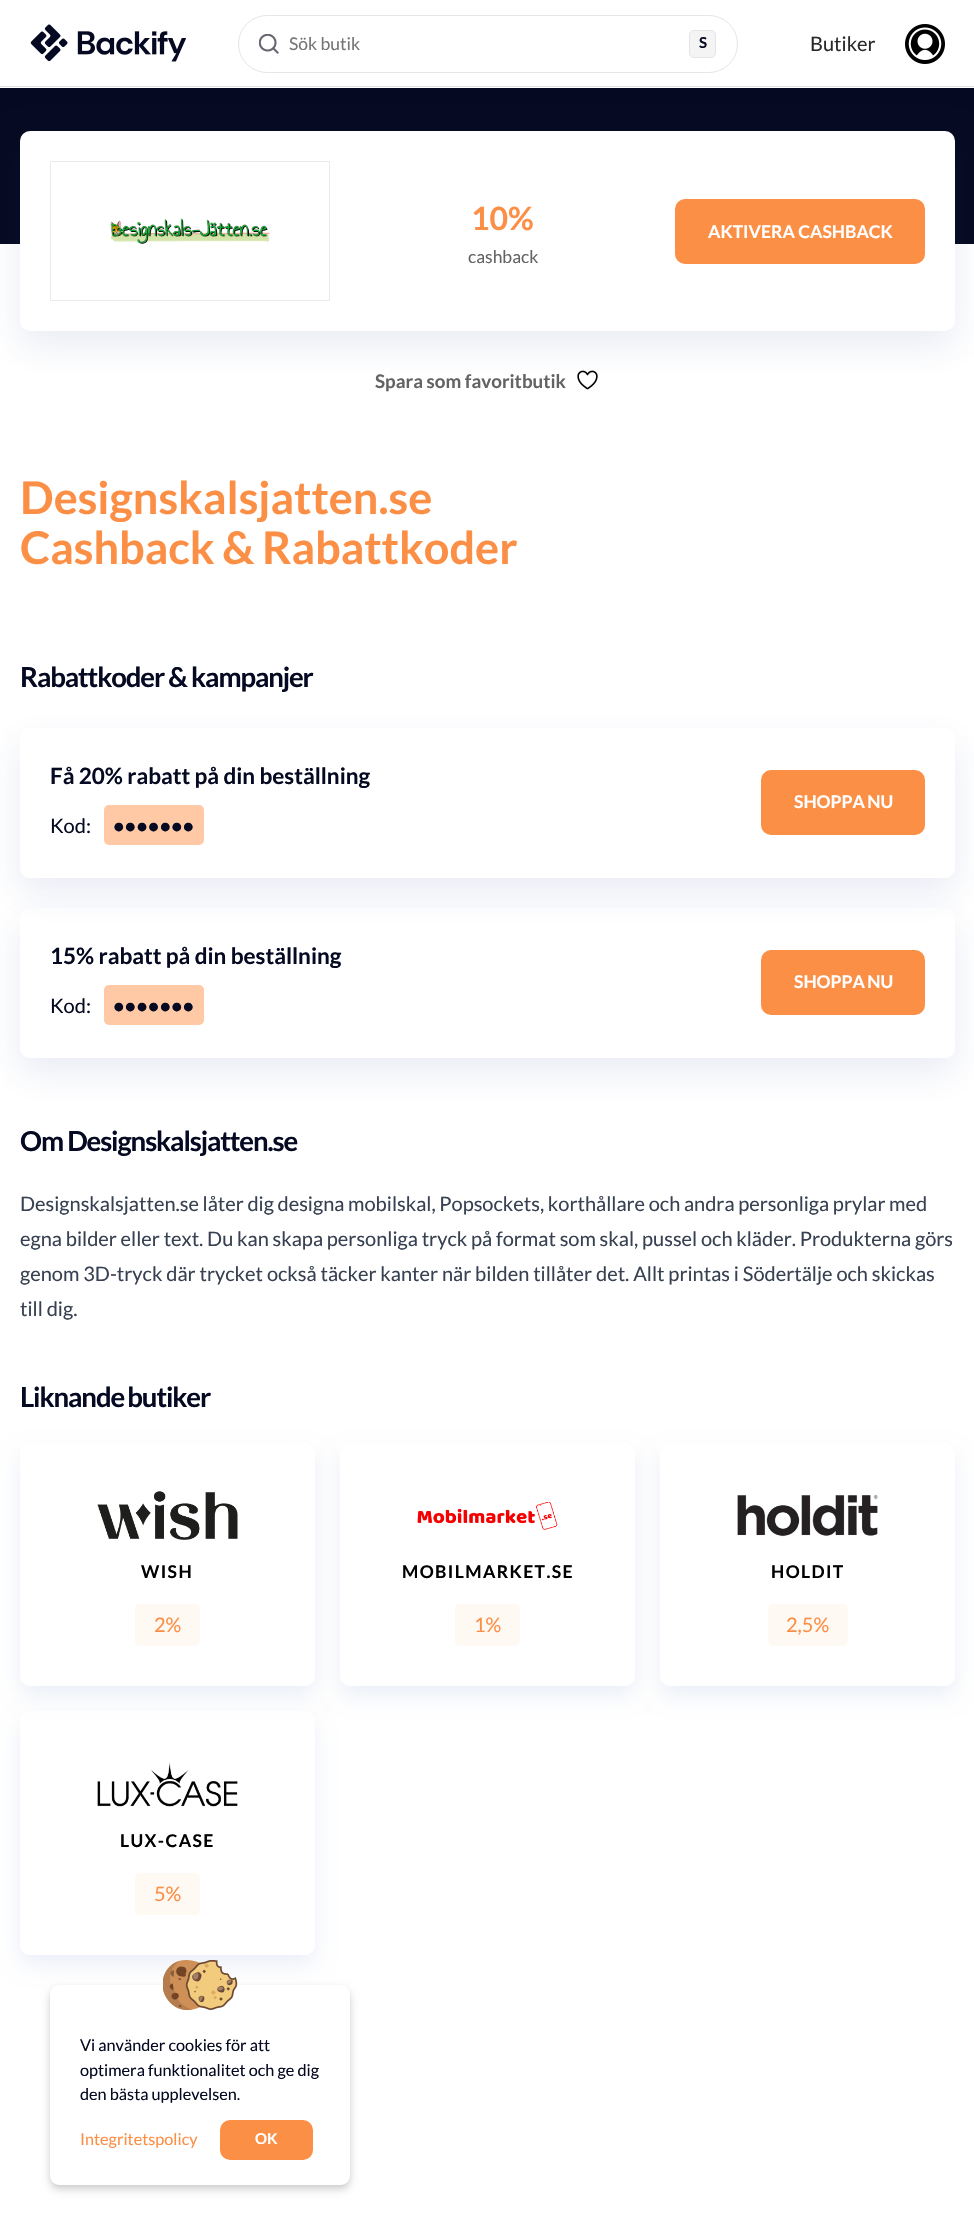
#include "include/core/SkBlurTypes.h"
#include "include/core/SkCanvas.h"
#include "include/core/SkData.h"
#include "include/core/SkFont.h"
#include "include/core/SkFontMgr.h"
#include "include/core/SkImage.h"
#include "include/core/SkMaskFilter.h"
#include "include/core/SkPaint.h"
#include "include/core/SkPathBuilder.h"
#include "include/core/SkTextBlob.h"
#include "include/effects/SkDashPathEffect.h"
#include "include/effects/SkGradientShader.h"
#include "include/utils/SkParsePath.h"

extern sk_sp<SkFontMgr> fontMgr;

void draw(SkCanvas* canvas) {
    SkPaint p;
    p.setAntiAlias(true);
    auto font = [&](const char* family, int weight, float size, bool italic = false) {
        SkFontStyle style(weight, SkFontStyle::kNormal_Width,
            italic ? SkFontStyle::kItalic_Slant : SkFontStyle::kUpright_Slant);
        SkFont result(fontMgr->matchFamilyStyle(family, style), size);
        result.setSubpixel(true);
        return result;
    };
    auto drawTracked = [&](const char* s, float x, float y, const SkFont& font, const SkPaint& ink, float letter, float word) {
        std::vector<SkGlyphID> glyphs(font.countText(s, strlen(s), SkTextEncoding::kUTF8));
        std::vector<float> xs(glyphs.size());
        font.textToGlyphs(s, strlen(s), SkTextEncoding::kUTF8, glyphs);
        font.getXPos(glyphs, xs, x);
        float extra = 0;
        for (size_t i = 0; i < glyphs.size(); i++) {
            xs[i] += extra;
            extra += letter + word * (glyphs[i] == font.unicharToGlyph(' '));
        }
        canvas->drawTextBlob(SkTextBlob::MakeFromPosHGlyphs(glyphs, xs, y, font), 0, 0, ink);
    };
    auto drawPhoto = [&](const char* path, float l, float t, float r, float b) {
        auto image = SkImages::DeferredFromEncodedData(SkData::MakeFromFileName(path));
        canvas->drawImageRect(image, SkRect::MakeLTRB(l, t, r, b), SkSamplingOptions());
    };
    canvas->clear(0xFFFFFFFF);
    p.setColor(0xFFE0E0E0);
    canvas->drawRect(SkRect::MakeLTRB(0, 86, 974, 87), p);
    drawPhoto("media/1.png", 30, 24, 186, 62);
    p.setStyle(SkPaint::kStroke_Style);
    p.setStrokeWidth(1);
    p.setColor(0xFFE5E5E6);
    canvas->drawRoundRect(SkRect::MakeLTRB(238.5f, 15.5f, 737.5f, 72.5f), 28.5f, 28.5f, p);
    drawPhoto("media/2.png", 259, 34, 279, 54);
    auto font1 = font("Lato", 400, 17.5f);
    p.setStyle(SkPaint::kFill_Style);
    p.setColor(0xFF757575);
    canvas->drawString("Sök butik", 289, 50, font1, p);
    p.setColor(0xFFF4F4F5);
    canvas->drawRoundRect(SkRect::MakeLTRB(689.5f, 30.5f, 715.5f, 57.5f), 4.5f, 4.5f, p);
    p.setStyle(SkPaint::kStroke_Style);
    p.setColor(0xFFE4E4E7);
    canvas->drawRoundRect(SkRect::MakeLTRB(689.5f, 30.5f, 715.5f, 57.5f), 4.5f, 4.5f, p);
    auto font2 = font("Lato", 700, 15);
    p.setStyle(SkPaint::kFill_Style);
    p.setColor(0xFF050921);
    canvas->drawString("S", 699, 48, font2, p);
    auto font3 = font("Lato", 400, 20);
    p.setColor(0xFF292929);
    canvas->drawString("Butiker", 810, 51, font3, p);
    drawPhoto("media/3.png", 905, 24, 945, 64);
    p.setColor(0xFF050921);
    canvas->drawRect(SkRect::MakeLTRB(0, 88, 974, 244), p);
    p.setColor(0x1A234093);
    p.setMaskFilter(SkMaskFilter::MakeBlur(kNormal_SkBlurStyle, 17.5f));
    canvas->drawRoundRect(SkRect::MakeLTRB(20, 146, 955, 346), 10, 10, p);
    p.setMaskFilter(nullptr);
    p.setColor(0xFFFFFFFF);
    canvas->drawRoundRect(SkRect::MakeLTRB(20, 131, 955, 331), 10, 10, p);
    p.setStyle(SkPaint::kStroke_Style);
    p.setColor(0xFFEBEBEB);
    canvas->drawRect(SkRect::MakeLTRB(50.5f, 161.5f, 329.5f, 300.5f), p);
    drawPhoto("media/4.png", 110, 218, 270, 244);
    auto font4 = font("Lato", 700, 32);
    p.setStyle(SkPaint::kFill_Style);
    p.setColor(0xFFFC8F46);
    canvas->drawString("10%", 471, 230, font4, p);
    p.setColor(0xFF636363);
    canvas->drawString("cashback", 468, 263, font1, p);
    p.setColor(0xFFFC8F46);
    canvas->drawRoundRect(SkRect::MakeLTRB(675, 199, 925, 264), 10, 10, p);
    auto font5 = font("Lato", 700, 17.5f);
    p.setColor(0xFFFFFFFF);
    canvas->drawString("AKTIVERA CASHBACK", 708, 238, font5, p);
    auto font6 = font("Lato", 700, 18.75f);
    p.setColor(0xFF636363);
    canvas->drawString("Spara som favoritbutik", 375, 388, font6, p);
    drawPhoto("media/5.png", 577, 370, 598, 390);
    auto font7 = font("Lato", 700, 45);
    p.setColor(0xFFFC8F46);
    canvas->drawString("Designskalsjatten.se", 20, 514, font7, p);
    drawTracked("Cashback & Rabattkoder", 20, 564, font7, p, 0, -1);
    auto font8 = font("Lato", 700, 27.5f);
    p.setColor(0xFF050921);
    drawTracked("Rabattkoder & kampanjer", 20, 687, font8, p, -1.1f, 0);
    canvas->save();
    canvas->clipPath(SkPathBuilder(SkPathFillType::kEvenOdd).moveTo(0, 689).lineTo(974, 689).lineTo(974, 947).lineTo(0, 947).close().moveTo(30, 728).lineTo(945, 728).cubicTo(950.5f, 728, 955, 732.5f, 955, 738).lineTo(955, 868).cubicTo(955, 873.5f, 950.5f, 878, 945, 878).lineTo(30, 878).cubicTo(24.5f, 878, 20, 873.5f, 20, 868).lineTo(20, 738).cubicTo(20, 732.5f, 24.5f, 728, 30, 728).close().detach(), true);
    p.setColor(0x1A234093);
    p.setMaskFilter(SkMaskFilter::MakeBlur(kNormal_SkBlurStyle, 17.5f));
    canvas->drawRoundRect(SkRect::MakeLTRB(20, 743, 955, 893), 10, 10, p);
    p.setMaskFilter(nullptr);
    canvas->restore();
    auto font9 = font("Lato", 700, 22.5f);
    p.setColor(0xFF050921);
    canvas->drawString("Få 20% rabatt på din beställning", 50, 784, font9, p);
    canvas->drawString("Kod", 50, 833, font3, p);
    canvas->drawString(":", 86, 833, font3, p);
    p.setColor(0xFFFFC9A5);
    canvas->drawRoundRect(SkRect::MakeLTRB(104, 805, 204, 845), 5, 5, p);
    auto font10 = font("Lato", 700, 20);
    p.setColor(0xFF050921);
    canvas->drawString("•••••••", 113, 833, font10, p);
    p.setColor(0xFFFC8F46);
    canvas->drawRoundRect(SkRect::MakeLTRB(761, 770, 925, 835), 10, 10, p);
    p.setColor(0xFFFFFFFF);
    drawTracked("SHOPPA NU", 794, 808, font5, p, 0, -1);
    canvas->save();
    canvas->clipPath(SkPathBuilder(SkPathFillType::kEvenOdd).moveTo(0, 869).lineTo(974, 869).lineTo(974, 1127).lineTo(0, 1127).close().moveTo(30, 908).lineTo(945, 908).cubicTo(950.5f, 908, 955, 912.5f, 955, 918).lineTo(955, 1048).cubicTo(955, 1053.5f, 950.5f, 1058, 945, 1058).lineTo(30, 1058).cubicTo(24.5f, 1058, 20, 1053.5f, 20, 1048).lineTo(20, 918).cubicTo(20, 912.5f, 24.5f, 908, 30, 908).close().detach(), true);
    p.setColor(0x1A234093);
    p.setMaskFilter(SkMaskFilter::MakeBlur(kNormal_SkBlurStyle, 17.5f));
    canvas->drawRoundRect(SkRect::MakeLTRB(20, 923, 955, 1073), 10, 10, p);
    p.setMaskFilter(nullptr);
    canvas->restore();
    p.setColor(0xFF050921);
    canvas->drawString("15% rabatt på din beställning", 50, 964, font9, p);
    canvas->drawString("Kod", 50, 1013, font3, p);
    canvas->drawString(":", 86, 1013, font3, p);
    p.setColor(0xFFFFC9A5);
    canvas->drawRoundRect(SkRect::MakeLTRB(104, 985, 204, 1025), 5, 5, p);
    p.setColor(0xFF050921);
    canvas->drawString("•••••••", 113, 1013, font10, p);
    p.setColor(0xFFFC8F46);
    canvas->drawRoundRect(SkRect::MakeLTRB(761, 950, 925, 1015), 10, 10, p);
    p.setColor(0xFFFFFFFF);
    drawTracked("SHOPPA NU", 794, 988, font5, p, 0, -1);
    p.setColor(0xFF050921);
    drawTracked("Om Designskalsjatten.se", 20, 1151, font8, p, -1.1f, 0);
    p.setColor(0xFF374151);
    drawTracked("Designskalsjatten.se låter dig designa mobilskal, Popsockets, korthållare och andra personliga prylar med", 20, 1211, font3, p, 0, -0.25f);
    drawTracked("egna bilder eller text. Du kan skapa personliga tryck på format som skal, pussel och kläder. Produkterna görs", 20, 1246, font3, p, 0, -0.1f);
    canvas->drawString("genom 3D-tryck där trycket också täcker kanter när bilden tillåter det. Allt printas i Södertälje och skickas", 20, 1281, font3, p);
    canvas->drawString("till dig.", 20, 1316, font3, p);
    p.setColor(0xFF050921);
    drawTracked("Liknande butiker", 20, 1407, font8, p, -1.1f, -1);
    canvas->save();
    canvas->clipPath(SkPathBuilder(SkPathFillType::kEvenOdd).moveTo(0, 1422).lineTo(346, 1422).lineTo(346, 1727).lineTo(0, 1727).close().moveTo(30, 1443).lineTo(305, 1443).cubicTo(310.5f, 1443, 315, 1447.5f, 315, 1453).lineTo(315, 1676).cubicTo(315, 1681.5f, 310.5f, 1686, 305, 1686).lineTo(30, 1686).cubicTo(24.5f, 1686, 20, 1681.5f, 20, 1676).lineTo(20, 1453).cubicTo(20, 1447.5f, 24.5f, 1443, 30, 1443).close().detach(), true);
    p.setColor(0xFFECF0F8);
    p.setMaskFilter(SkMaskFilter::MakeBlur(kNormal_SkBlurStyle, 10));
    canvas->drawRoundRect(SkRect::MakeLTRB(20, 1453, 315, 1696), 10, 10, p);
    p.setMaskFilter(nullptr);
    canvas->restore();
    drawPhoto("media/6.png", 97, 1491, 238, 1540);
    p.setColor(0xFF000000);
    drawTracked("WISH", 141, 1578, font5, p, 1.4f, 0);
    p.setColor(0xFFFFF9F4);
    canvas->drawRoundRect(SkRect::MakeLTRB(135, 1604, 200, 1646), 5, 5, p);
    p.setColor(0xFFFC8F46);
    canvas->drawString("2%", 154, 1632, font3, p);
    canvas->save();
    canvas->clipPath(SkPathBuilder(SkPathFillType::kEvenOdd).moveTo(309, 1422).lineTo(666, 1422).lineTo(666, 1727).lineTo(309, 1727).close().moveTo(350, 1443).lineTo(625, 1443).cubicTo(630.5f, 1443, 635, 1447.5f, 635, 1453).lineTo(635, 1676).cubicTo(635, 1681.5f, 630.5f, 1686, 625, 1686).lineTo(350, 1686).cubicTo(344.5f, 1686, 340, 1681.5f, 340, 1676).lineTo(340, 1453).cubicTo(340, 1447.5f, 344.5f, 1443, 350, 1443).close().detach(), true);
    p.setColor(0xFFECF0F8);
    p.setMaskFilter(SkMaskFilter::MakeBlur(kNormal_SkBlurStyle, 10));
    canvas->drawRoundRect(SkRect::MakeLTRB(340, 1453, 635, 1696), 10, 10, p);
    p.setMaskFilter(nullptr);
    canvas->restore();
    drawPhoto("media/7.png", 417, 1501, 558, 1530);
    p.setColor(0xFF000000);
    drawTracked("MOBILMARKET.SE", 402, 1578, font5, p, 1.4f, 0);
    p.setColor(0xFFFFF9F4);
    canvas->drawRoundRect(SkRect::MakeLTRB(455, 1604, 520, 1646), 5, 5, p);
    p.setColor(0xFFFC8F46);
    canvas->drawString("1%", 474, 1632, font3, p);
    canvas->save();
    canvas->clipPath(SkPathBuilder(SkPathFillType::kEvenOdd).moveTo(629, 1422).lineTo(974, 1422).lineTo(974, 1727).lineTo(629, 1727).close().moveTo(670, 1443).lineTo(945, 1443).cubicTo(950.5f, 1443, 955, 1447.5f, 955, 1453).lineTo(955, 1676).cubicTo(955, 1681.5f, 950.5f, 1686, 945, 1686).lineTo(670, 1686).cubicTo(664.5f, 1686, 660, 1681.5f, 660, 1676).lineTo(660, 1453).cubicTo(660, 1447.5f, 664.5f, 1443, 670, 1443).close().detach(), true);
    p.setColor(0xFFECF0F8);
    p.setMaskFilter(SkMaskFilter::MakeBlur(kNormal_SkBlurStyle, 10));
    canvas->drawRoundRect(SkRect::MakeLTRB(660, 1453, 955, 1696), 10, 10, p);
    p.setMaskFilter(nullptr);
    canvas->restore();
    drawPhoto("media/8.png", 737, 1495, 878, 1537);
    p.setColor(0xFF000000);
    drawTracked("HOLDIT", 771, 1578, font5, p, 1.4f, 0);
    p.setColor(0xFFFFF9F4);
    canvas->drawRoundRect(SkRect::MakeLTRB(768, 1604, 848, 1646), 5, 5, p);
    p.setColor(0xFFFC8F46);
    canvas->drawString("2,5%", 786, 1632, font3, p);
    canvas->save();
    canvas->clipPath(SkPathBuilder(SkPathFillType::kEvenOdd).moveTo(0, 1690).lineTo(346, 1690).lineTo(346, 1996).lineTo(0, 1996).close().moveTo(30, 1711).lineTo(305, 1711).cubicTo(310.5f, 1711, 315, 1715.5f, 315, 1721).lineTo(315, 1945).cubicTo(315, 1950.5f, 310.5f, 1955, 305, 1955).lineTo(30, 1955).cubicTo(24.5f, 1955, 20, 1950.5f, 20, 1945).lineTo(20, 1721).cubicTo(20, 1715.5f, 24.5f, 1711, 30, 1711).close().detach(), true);
    p.setColor(0xFFECF0F8);
    p.setMaskFilter(SkMaskFilter::MakeBlur(kNormal_SkBlurStyle, 10));
    canvas->drawRoundRect(SkRect::MakeLTRB(20, 1721, 315, 1965), 10, 10, p);
    p.setMaskFilter(nullptr);
    canvas->restore();
    drawPhoto("media/9.png", 97, 1762, 238, 1807);
    p.setColor(0xFF000000);
    drawTracked("LUX-CASE", 120, 1847, font5, p, 1.4f, 0);
    p.setColor(0xFFFFF9F4);
    canvas->drawRoundRect(SkRect::MakeLTRB(135, 1873, 200, 1915), 5, 5, p);
    p.setColor(0xFFFC8F46);
    canvas->drawString("5%", 154, 1901, font3, p);
    p.setColor(0x14000000);
    p.setMaskFilter(SkMaskFilter::MakeBlur(kNormal_SkBlurStyle, 2.5f));
    canvas->drawRoundRect(SkRect::MakeLTRB(50, 1988, 350, 2188), 9, 9, p);
    p.setMaskFilter(nullptr);
    p.setColor(0x1F000000);
    p.setMaskFilter(SkMaskFilter::MakeBlur(kNormal_SkBlurStyle, 5));
    canvas->drawRoundRect(SkRect::MakeLTRB(50, 1990, 350, 2190), 9, 9, p);
    p.setMaskFilter(nullptr);
    p.setColor(0xFFFFFFFF);
    canvas->drawRoundRect(SkRect::MakeLTRB(50, 1985, 350, 2185), 9, 9, p);
    drawPhoto("media/10.png", 163, 1960, 238, 2010);
    auto font11 = font("Lato", 400, 16.25f);
    p.setColor(0xFF050921);
    {
        const struct { const char* s; float x, y; } items[] = {
            {"Vi använder cookies för att", 80, 2051},
            {"optimera funktionalitet och ge dig", 80, 2076},
            {"den bästa upplevelsen.", 80, 2100},
        };
        for (auto [s, x, y] : items) {
            canvas->drawString(s, x, y, font11, p);
        }
    }
    p.setColor(0xFFFC8F46);
    canvas->drawString("Integritetspolicy", 80, 2145, font11, p);
    canvas->drawRoundRect(SkRect::MakeLTRB(220, 2120, 313, 2160), 10, 10, p);
    p.setColor(0xFFFFFFFF);
    canvas->drawString("OK", 255, 2144, font2, p);
}
